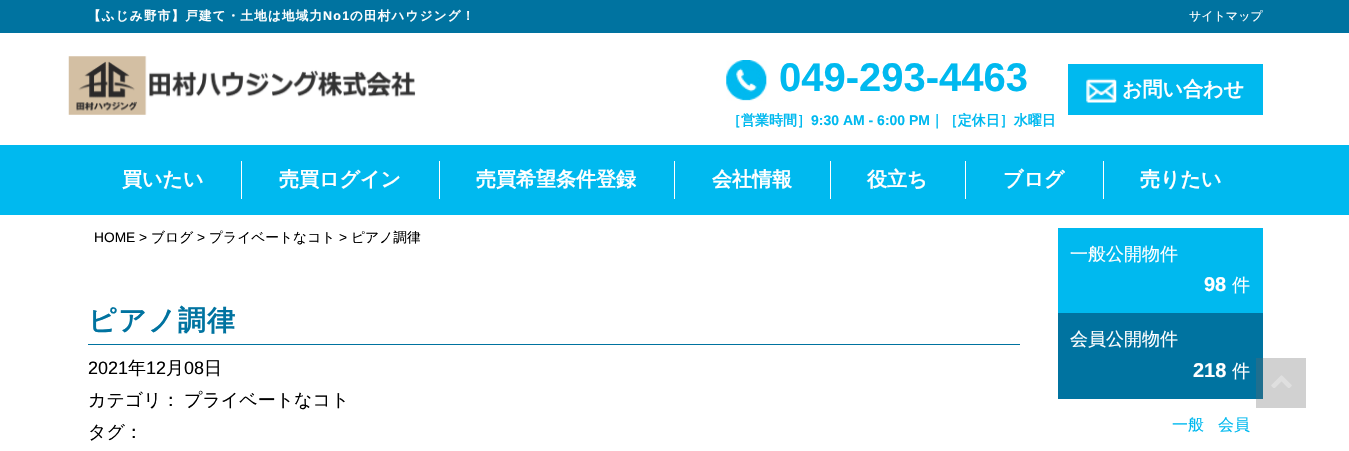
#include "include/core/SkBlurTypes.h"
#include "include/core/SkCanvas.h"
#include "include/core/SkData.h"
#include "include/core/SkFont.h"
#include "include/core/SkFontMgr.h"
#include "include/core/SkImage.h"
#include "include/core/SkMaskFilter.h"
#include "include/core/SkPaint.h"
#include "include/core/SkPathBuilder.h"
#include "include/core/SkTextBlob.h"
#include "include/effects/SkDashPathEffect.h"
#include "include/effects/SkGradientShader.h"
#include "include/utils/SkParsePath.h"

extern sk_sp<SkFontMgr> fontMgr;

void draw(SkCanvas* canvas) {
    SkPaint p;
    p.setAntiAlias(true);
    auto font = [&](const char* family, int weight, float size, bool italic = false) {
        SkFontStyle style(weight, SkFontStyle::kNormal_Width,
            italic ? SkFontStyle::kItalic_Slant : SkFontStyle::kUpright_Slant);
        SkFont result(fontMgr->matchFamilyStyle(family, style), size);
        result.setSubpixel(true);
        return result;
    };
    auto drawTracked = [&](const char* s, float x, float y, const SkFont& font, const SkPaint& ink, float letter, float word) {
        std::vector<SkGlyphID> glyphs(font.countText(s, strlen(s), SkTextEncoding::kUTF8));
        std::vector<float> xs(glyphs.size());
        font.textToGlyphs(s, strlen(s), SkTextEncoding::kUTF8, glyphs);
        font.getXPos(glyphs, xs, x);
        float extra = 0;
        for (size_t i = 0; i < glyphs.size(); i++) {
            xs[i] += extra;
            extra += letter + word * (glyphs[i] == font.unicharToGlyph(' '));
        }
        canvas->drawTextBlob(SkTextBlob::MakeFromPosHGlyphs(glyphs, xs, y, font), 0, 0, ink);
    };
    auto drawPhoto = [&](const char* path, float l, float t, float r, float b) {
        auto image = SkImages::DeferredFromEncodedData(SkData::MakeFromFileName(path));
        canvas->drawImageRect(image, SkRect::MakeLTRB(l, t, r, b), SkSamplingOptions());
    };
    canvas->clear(0xFFFFFFFF);
    p.setColor(0xFFD1D1D1);
    canvas->drawRect(SkRect::MakeLTRB(1256, 358, 1306, 408), p);
    p.setColor(0xFF0073A0);
    canvas->drawRect(SkRect::MakeLTRB(0, 0, 1349, 33), p);
    auto font1 = font("WenQuanYi Zen Hei", 700, 12.5f);
    p.setColor(0xFFFFFFFF);
    drawTracked("【ふじみ野市】戸建て・土地は地域力", 88, 20, font1, p, 1.25f, 0);
    auto font2 = font("Liberation Sans", 700, 12.5f);
    drawTracked("No1", 323, 20, font2, p, 1.25f, 0);
    drawTracked("の田村ハウジング！", 350, 20, font1, p, 1.25f, 0);
    auto font3 = font("WenQuanYi Zen Hei", 500, 12);
    canvas->drawString("サイトマップ", 1189, 20, font3, p);
    drawPhoto("media/1.png", 68, 56, 416, 115);
    drawPhoto("media/2.png", 726, 60, 767, 101);
    auto font4 = font("Liberation Sans", 700, 40);
    p.setColor(0xFF00B9EF);
    canvas->drawString("049-293-4463", 779, 91, font4, p);
    auto font5 = font("WenQuanYi Zen Hei", 700, 14);
    canvas->drawString("［営業時間］", 727, 125, font5, p);
    auto font6 = font("Liberation Sans", 700, 14);
    canvas->drawString("9:30 AM - 6:00 PM", 811, 125, font6, p);
    canvas->drawString("｜［定休日］水曜日", 930, 125, font5, p);
    canvas->drawRect(SkRect::MakeLTRB(1068, 64, 1263, 115), p);
    drawPhoto("media/3.png", 1086, 78, 1117, 103);
    auto font7 = font("WenQuanYi Zen Hei", 700, 20);
    p.setColor(0xFFFFFFFF);
    canvas->drawString("お問い合わせ", 1122, 96, font7, p);
    p.setColor(0xFF00B9EF);
    canvas->drawRect(SkRect::MakeLTRB(0, 145, 1349, 215), p);
    p.setColor(0xFFFFFFFF);
    canvas->drawRect(SkRect::MakeLTRB(241, 161, 242, 199), p);
    canvas->drawString("買いたい", 122, 186, font7, p);
    canvas->drawRect(SkRect::MakeLTRB(439, 161, 440, 199), p);
    canvas->drawString("売買ログイン", 279, 186, font7, p);
    canvas->drawRect(SkRect::MakeLTRB(674, 161, 675, 199), p);
    canvas->drawString("売買希望条件登録", 476, 186, font7, p);
    canvas->drawRect(SkRect::MakeLTRB(830, 161, 831, 199), p);
    canvas->drawString("会社情報", 712, 186, font7, p);
    canvas->drawRect(SkRect::MakeLTRB(965, 161, 966, 199), p);
    canvas->drawString("役立ち", 867, 186, font7, p);
    canvas->drawRect(SkRect::MakeLTRB(1103, 161, 1104, 199), p);
    canvas->drawString("ブログ", 1003, 186, font7, p);
    canvas->drawString("売りたい", 1140, 186, font7, p);
    auto font8 = font("Liberation Sans", 400, 13.75f);
    p.setColor(0xFF000000);
    canvas->drawString("HOME >", 94, 242, font8, p);
    auto font9 = font("WenQuanYi Zen Hei", 500, 13.75f);
    canvas->drawString("ブログ", 151, 242, font9, p);
    canvas->drawString(">", 197, 242, font8, p);
    canvas->drawString("プライベートなコト", 209, 242, font9, p);
    canvas->drawString(">", 339, 242, font8, p);
    canvas->drawString("ピアノ調律", 351, 242, font9, p);
    p.setColor(0xFF0073A0);
    canvas->drawRect(SkRect::MakeLTRB(88, 344, 1020, 345), p);
    auto font10 = font("WenQuanYi Zen Hei", 700, 28);
    drawTracked("ピアノ調律", 88, 330, font10, p, 1.25f, 0);
    auto font11 = font("Liberation Sans", 400, 18);
    p.setColor(0xFF000000);
    canvas->drawString("2021", 88, 374, font11, p);
    auto font12 = font("WenQuanYi Zen Hei", 500, 18);
    canvas->drawString("年", 128, 374, font12, p);
    canvas->drawString("12", 146, 374, font11, p);
    canvas->drawString("月", 166, 374, font12, p);
    canvas->drawString("08", 184, 374, font11, p);
    {
        const struct { const char* s; float x, y; } items[] = {
            {"日", 204, 374},
            {"カテゴリ：", 88, 406},
            {"プライベートなコト", 184, 406},
            {"タグ：", 88, 438},
        };
        for (auto [s, x, y] : items) {
            canvas->drawString(s, x, y, font12, p);
        }
    }
    p.setColor(0xFF00B9EF);
    canvas->drawRect(SkRect::MakeLTRB(1058, 228, 1263, 313), p);
    p.setColor(0xFFFFFFFF);
    canvas->drawString("一般公開物件", 1070, 260, font12, p);
    auto font13 = font("Liberation Sans", 700, 20);
    canvas->drawString("98", 1204, 291, font13, p);
    canvas->drawString("件", 1232, 291, font12, p);
    p.setColor(0xFF0073A0);
    canvas->drawRect(SkRect::MakeLTRB(1058, 313, 1263, 399), p);
    p.setColor(0xFF1F6F8F);
    canvas->drawRect(SkRect::MakeLTRB(1256, 358, 1263, 399), p);
    p.setColor(0xFFFFFFFF);
    canvas->drawString("会員公開物件", 1070, 345, font12, p);
    canvas->drawString("218", 1193, 377, font13, p);
    canvas->drawString("件", 1232, 377, font12, p);
    auto font14 = font("WenQuanYi Zen Hei", 500, 16);
    p.setColor(0xFF00B9EF);
    canvas->drawString("一般", 1172, 430, font14, p);
    canvas->drawString("会員", 1218, 430, font14, p);
    drawPhoto("media/4.png", 1271, 375, 1292, 388);
}
